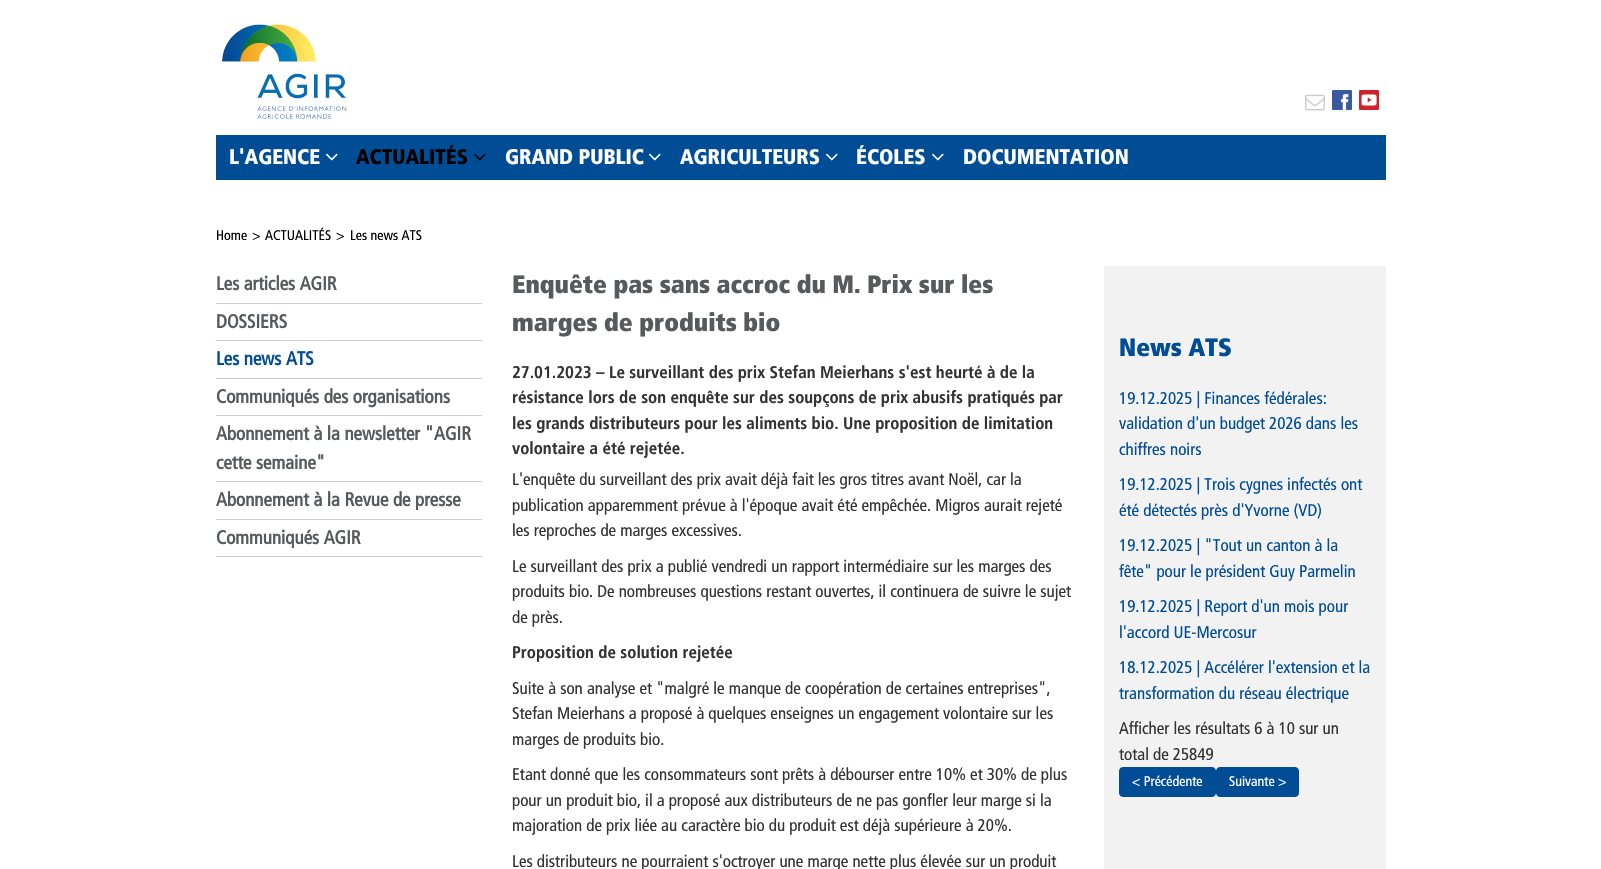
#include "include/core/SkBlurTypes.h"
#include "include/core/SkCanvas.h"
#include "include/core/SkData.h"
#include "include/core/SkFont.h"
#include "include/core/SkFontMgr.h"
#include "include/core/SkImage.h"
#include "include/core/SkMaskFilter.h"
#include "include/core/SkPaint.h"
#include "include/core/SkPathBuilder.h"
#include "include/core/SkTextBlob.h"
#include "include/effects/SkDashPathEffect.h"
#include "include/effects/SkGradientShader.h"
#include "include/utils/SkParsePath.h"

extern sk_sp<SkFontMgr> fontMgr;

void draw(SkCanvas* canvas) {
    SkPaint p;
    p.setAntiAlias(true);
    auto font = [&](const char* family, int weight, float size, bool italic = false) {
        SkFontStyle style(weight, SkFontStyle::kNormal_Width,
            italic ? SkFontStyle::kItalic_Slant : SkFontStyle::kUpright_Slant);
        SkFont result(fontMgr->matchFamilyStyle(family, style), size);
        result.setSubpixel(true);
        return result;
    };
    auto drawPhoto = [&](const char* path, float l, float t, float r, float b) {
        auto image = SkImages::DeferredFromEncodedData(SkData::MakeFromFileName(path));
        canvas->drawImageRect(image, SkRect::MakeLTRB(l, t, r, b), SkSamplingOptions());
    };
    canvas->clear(0xFFFFFFFF);
    drawPhoto("media/1.png", 221, 20, 351, 122);
    drawPhoto("media/2.png", 1305, 94, 1325, 111);
    drawPhoto("media/3.png", 1332, 90, 1352, 110);
    drawPhoto("media/4.png", 1359, 90, 1379, 110);
    p.setColor(0xFF004D95);
    canvas->drawRect(SkRect::MakeLTRB(216, 135, 1386, 180), p);
    auto font1 = font("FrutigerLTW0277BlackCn", 900, 21);
    p.setColor(0xFFFFFFFF);
    canvas->drawString("L'AGENCE", 229, 164, font1, p);
    drawPhoto("media/5.png", 325, 153, 338, 161);
    p.setColor(0xFF000000);
    canvas->drawString("ACTUALITÉS", 356, 164, font1, p);
    drawPhoto("media/6.png", 474, 153, 486, 161);
    p.setColor(0xFFFFFFFF);
    canvas->drawString("GRAND PUBLIC", 505, 164, font1, p);
    drawPhoto("media/5.png", 648, 153, 661, 161);
    canvas->drawString("AGRICULTEURS", 680, 164, font1, p);
    drawPhoto("media/5.png", 825, 153, 838, 161);
    canvas->drawString("ÉCOLES", 856, 164, font1, p);
    drawPhoto("media/5.png", 931, 153, 944, 161);
    canvas->drawString("DOCUMENTATION", 963, 164, font1, p);
    auto font2 = font("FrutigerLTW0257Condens", 400, 14);
    p.setColor(0xFF000000);
    {
        const struct { const char* s; float x, y; } items[] = {
            {"Home", 216, 240},
            {">", 252, 240},
            {"ACTUALITÉS", 265, 240},
            {">", 336, 240},
            {"Les news ATS", 350, 240},
        };
        for (auto [s, x, y] : items) {
            canvas->drawString(s, x, y, font2, p);
        }
    }
    p.setColor(0xFFCCCCCC);
    canvas->drawRect(SkRect::MakeLTRB(216, 303, 482, 304), p);
    auto font3 = font("FrutigerLTW0257Condens", 700, 19);
    p.setColor(0xFF565A5C);
    canvas->drawString("Les articles AGIR", 216, 290, font3, p);
    p.setColor(0xFFCCCCCC);
    canvas->drawRect(SkRect::MakeLTRB(216, 340, 482, 341), p);
    p.setColor(0xFF565A5C);
    canvas->drawString("DOSSIERS", 216, 328, font3, p);
    p.setColor(0xFFCCCCCC);
    canvas->drawRect(SkRect::MakeLTRB(216, 378, 482, 379), p);
    p.setColor(0xFF004D95);
    canvas->drawString("Les news ATS", 216, 365, font3, p);
    p.setColor(0xFFCCCCCC);
    canvas->drawRect(SkRect::MakeLTRB(216, 415, 482, 416), p);
    p.setColor(0xFF565A5C);
    canvas->drawString("Communiqués des organisations", 216, 403, font3, p);
    p.setColor(0xFFCCCCCC);
    canvas->drawRect(SkRect::MakeLTRB(216, 481, 482, 482), p);
    p.setColor(0xFF565A5C);
    canvas->drawString("Abonnement à la newsletter \"AGIR", 216, 440, font3, p);
    canvas->drawString("cette semaine\"", 216, 469, font3, p);
    p.setColor(0xFFCCCCCC);
    canvas->drawRect(SkRect::MakeLTRB(216, 519, 482, 520), p);
    p.setColor(0xFF565A5C);
    canvas->drawString("Abonnement à la Revue de presse", 216, 506, font3, p);
    p.setColor(0xFFCCCCCC);
    canvas->drawRect(SkRect::MakeLTRB(216, 556, 482, 557), p);
    p.setColor(0xFF565A5C);
    canvas->drawString("Communiqués AGIR", 216, 544, font3, p);
    auto font4 = font("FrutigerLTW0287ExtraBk", 800, 25);
    canvas->drawString("Enquête pas sans accroc du M. Prix sur les", 512, 293, font4, p);
    canvas->drawString("marges de produits bio", 512, 331, font4, p);
    auto font5 = font("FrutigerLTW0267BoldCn", 700, 17);
    p.setColor(0xFF333333);
    {
        const struct { const char* s; float x, y; } items[] = {
            {"27.01.2023 – Le surveillant des prix Stefan Meierhans s'est heurté à de la", 512, 378},
            {"résistance lors de son enquête sur des soupçons de prix abusifs pratiqués par", 512, 403},
            {"les grands distributeurs pour les aliments bio. Une proposition de limitation", 512, 429},
            {"volontaire a été rejetée.", 512, 454},
        };
        for (auto [s, x, y] : items) {
            canvas->drawString(s, x, y, font5, p);
        }
    }
    auto font6 = font("FrutigerLTW0257Condens", 400, 17);
    {
        const struct { const char* s; float x, y; } items[] = {
            {"L'enquête du surveillant des prix avait déjà fait les gros titres avant Noël, car la", 512, 485},
            {"publication apparemment prévue à l'époque avait été empêchée. Migros aurait rejeté", 512, 511},
            {"les reproches de marges excessives.", 512, 536},
            {"Le surveillant des prix a publié vendredi un rapport intermédiaire sur les marges des", 512, 572},
            {"produits bio. De nombreuses questions restant ouvertes, il continuera de suivre le sujet", 512, 597},
            {"de près.", 512, 623},
        };
        for (auto [s, x, y] : items) {
            canvas->drawString(s, x, y, font6, p);
        }
    }
    canvas->drawString("Proposition de solution rejetée", 512, 658, font5, p);
    {
        const struct { const char* s; float x, y; } items[] = {
            {"Suite à son analyse et \"malgré le manque de coopération de certaines entreprises\",", 512, 694},
            {"Stefan Meierhans a proposé à quelques enseignes un engagement volontaire sur les", 512, 719},
            {"marges de produits bio.", 512, 745},
            {"Etant donné que les consommateurs sont prêts à débourser entre 10% et 30% de plus", 512, 780},
            {"pour un produit bio, il a proposé aux distributeurs de ne pas gonfler leur marge si la", 512, 806},
            {"majoration de prix liée au caractère bio du produit est déjà supérieure à 20%.", 512, 831},
            {"Les distributeurs ne pourraient s'octroyer une marge nette plus élevée sur un produit", 512, 867},
        };
        for (auto [s, x, y] : items) {
            canvas->drawString(s, x, y, font6, p);
        }
    }
    p.setColor(0xFFF2F2F2);
    canvas->drawRect(SkRect::MakeLTRB(1104, 266, 1386, 869), p);
    p.setColor(0xFF004D95);
    canvas->drawString("News ATS", 1119, 356, font4, p);
    {
        const struct { const char* s; float x, y; } items[] = {
            {"19.12.2025 | Finances fédérales:", 1119, 404},
            {"validation d'un budget 2026 dans les", 1119, 429},
            {"chiffres noirs", 1119, 455},
            {"19.12.2025 | Trois cygnes infectés ont", 1119, 490},
            {"été détectés près d'Yvorne (VD)", 1119, 516},
            {"19.12.2025 | \"Tout un canton à la", 1119, 551},
            {"fête\" pour le président Guy Parmelin", 1119, 577},
            {"19.12.2025 | Report d'un mois pour", 1119, 612},
            {"l'accord UE-Mercosur", 1119, 638},
            {"18.12.2025 | Accélérer l'extension et la", 1119, 673},
            {"transformation du réseau électrique", 1119, 699},
        };
        for (auto [s, x, y] : items) {
            canvas->drawString(s, x, y, font6, p);
        }
    }
    p.setColor(0xFF333333);
    canvas->drawString("Afficher les résultats 6 à 10 sur un", 1119, 734, font6, p);
    canvas->drawString("total de 25849", 1119, 760, font6, p);
    p.setColor(0xFF004D95);
    canvas->drawRoundRect(SkRect::MakeLTRB(1119.5f, 767.5f, 1215.5f, 796.5f), 3.5f, 3.5f, p);
    p.setStyle(SkPaint::kStroke_Style);
    p.setStrokeWidth(1);
    canvas->drawRoundRect(SkRect::MakeLTRB(1119.5f, 767.5f, 1215.5f, 796.5f), 3.5f, 3.5f, p);
    p.setStyle(SkPaint::kFill_Style);
    p.setColor(0xFFFFFFFF);
    canvas->drawString("< Précédente", 1132, 786, font2, p);
    p.setColor(0xFF004D95);
    canvas->drawRoundRect(SkRect::MakeLTRB(1216.5f, 767.5f, 1298.5f, 796.5f), 3.5f, 3.5f, p);
    p.setStyle(SkPaint::kStroke_Style);
    canvas->drawRoundRect(SkRect::MakeLTRB(1216.5f, 767.5f, 1298.5f, 796.5f), 3.5f, 3.5f, p);
    p.setStyle(SkPaint::kFill_Style);
    p.setColor(0xFFFFFFFF);
    canvas->drawString("Suivante >", 1229, 786, font2, p);
}
